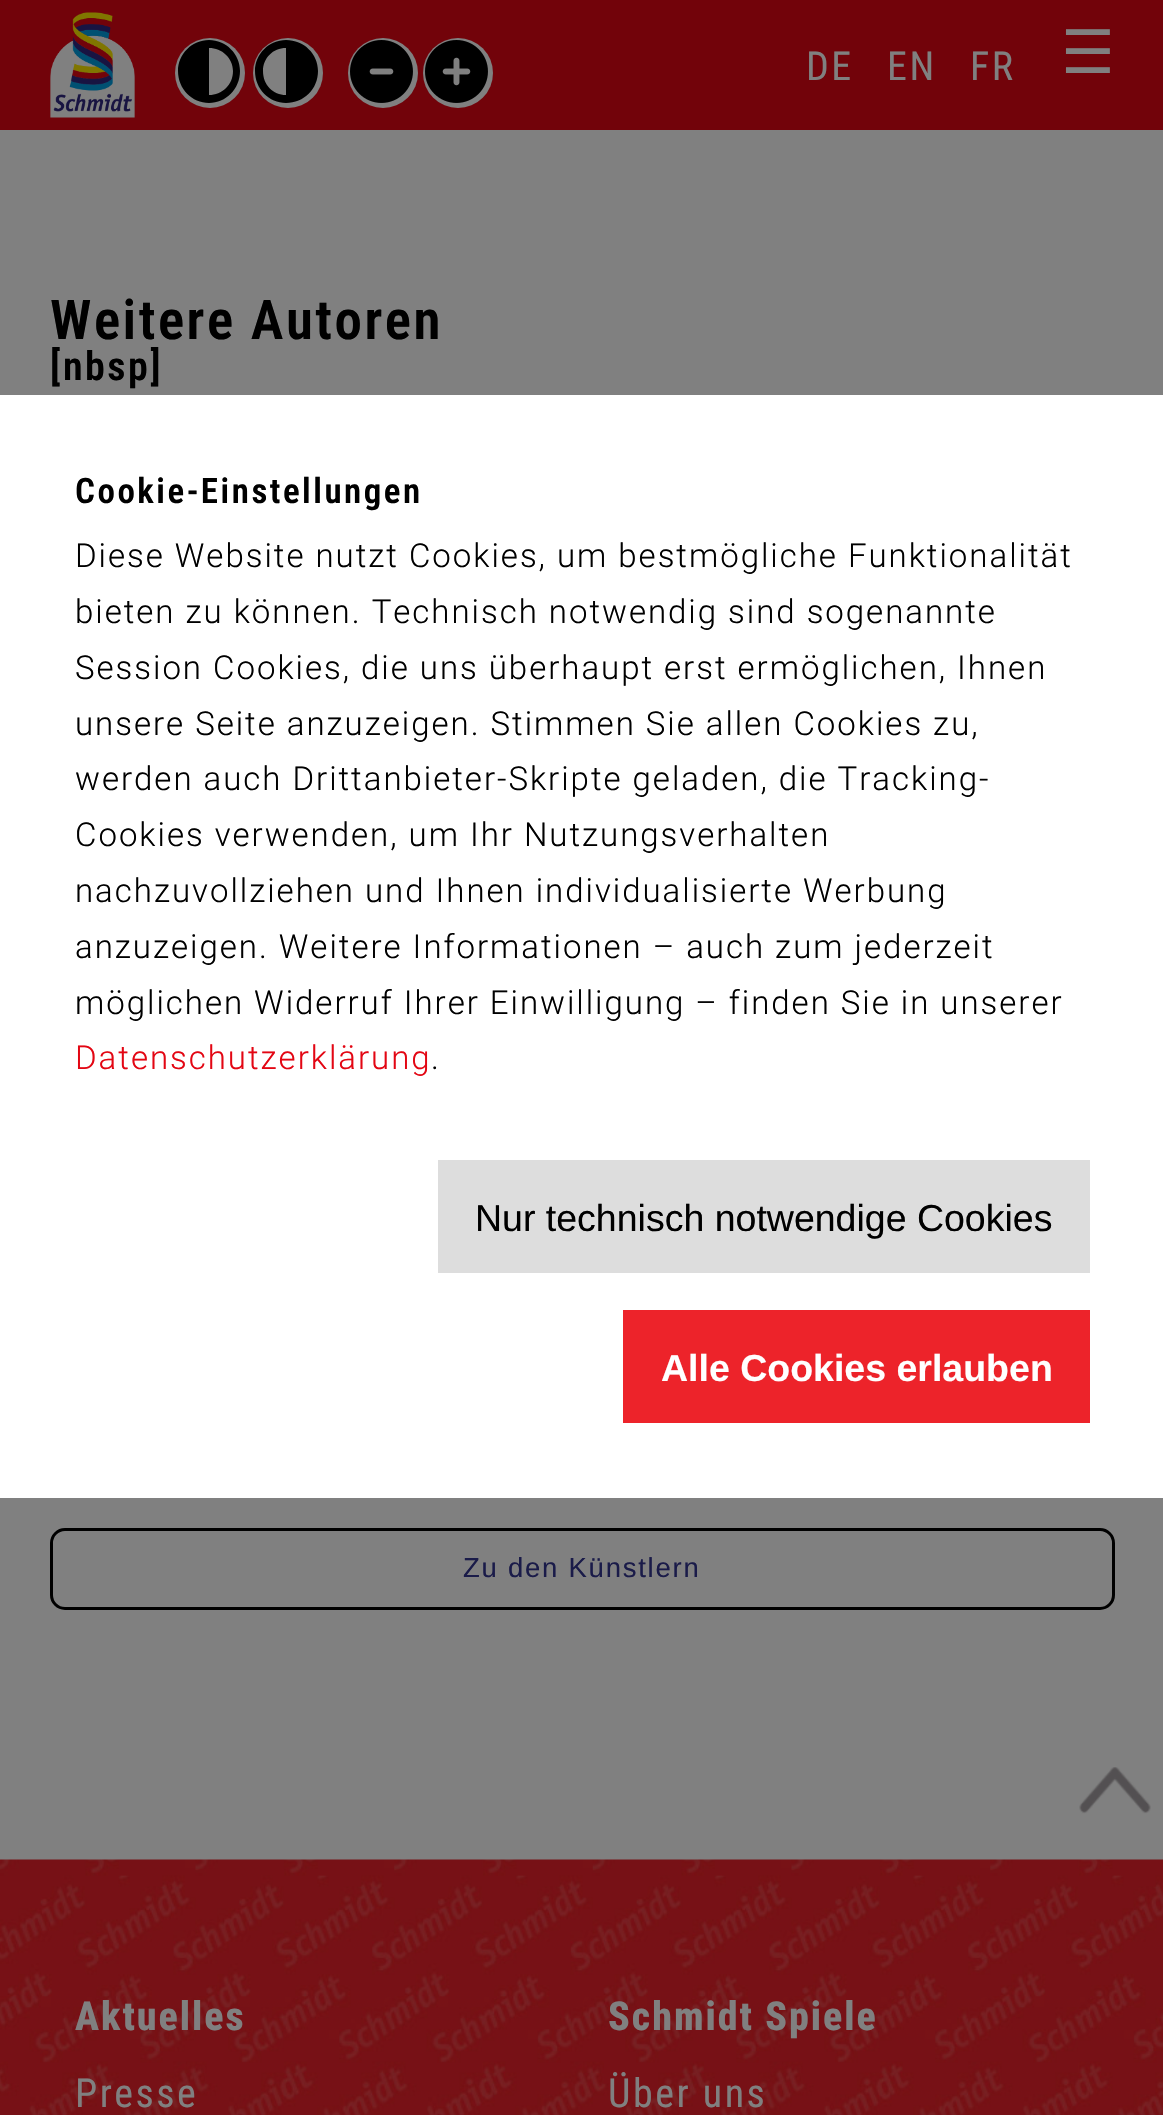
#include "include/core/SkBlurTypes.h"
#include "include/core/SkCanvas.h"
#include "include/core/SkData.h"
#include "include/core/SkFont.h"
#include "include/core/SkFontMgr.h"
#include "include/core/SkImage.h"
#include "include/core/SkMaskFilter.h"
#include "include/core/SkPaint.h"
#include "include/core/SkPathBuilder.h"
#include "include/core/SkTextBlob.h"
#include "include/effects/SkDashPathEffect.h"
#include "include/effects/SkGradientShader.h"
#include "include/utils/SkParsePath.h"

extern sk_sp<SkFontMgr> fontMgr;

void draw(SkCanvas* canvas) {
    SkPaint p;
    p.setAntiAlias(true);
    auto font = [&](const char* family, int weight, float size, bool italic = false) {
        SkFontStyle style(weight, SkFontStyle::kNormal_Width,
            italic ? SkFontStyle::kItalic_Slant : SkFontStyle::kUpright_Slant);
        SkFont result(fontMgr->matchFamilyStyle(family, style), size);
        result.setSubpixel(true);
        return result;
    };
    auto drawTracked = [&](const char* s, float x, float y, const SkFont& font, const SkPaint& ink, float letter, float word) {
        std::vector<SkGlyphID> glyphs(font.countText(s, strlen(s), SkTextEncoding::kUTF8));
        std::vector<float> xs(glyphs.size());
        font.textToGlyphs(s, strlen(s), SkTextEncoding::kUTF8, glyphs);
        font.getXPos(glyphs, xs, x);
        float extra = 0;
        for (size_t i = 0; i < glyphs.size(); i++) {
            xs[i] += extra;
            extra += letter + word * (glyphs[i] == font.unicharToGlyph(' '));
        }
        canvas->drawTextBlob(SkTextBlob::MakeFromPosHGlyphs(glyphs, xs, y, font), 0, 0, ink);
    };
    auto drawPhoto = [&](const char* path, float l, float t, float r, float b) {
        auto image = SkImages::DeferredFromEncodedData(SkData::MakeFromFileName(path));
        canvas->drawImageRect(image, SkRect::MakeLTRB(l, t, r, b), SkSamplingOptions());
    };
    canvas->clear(0xFF808080);
    p.setColor(0xFF72030A);
    canvas->drawRect(SkRect::MakeLTRB(0, 0, 1163, 130), p);
    drawPhoto("media/1.png", 50, 12, 135, 118);
    p.setColor(0xFF808080);
    canvas->drawCircle(210, 73, 35, p);
    p.setColor(0xFF000000);
    canvas->drawPath(SkPathBuilder().moveTo(233, 71).cubicTo(233, 58, 222, 48, 209, 48).lineTo(209, 95).cubicTo(222, 95, 233, 85, 233, 71).close().moveTo(178, 71).cubicTo(178, 54, 192, 40, 209, 40).cubicTo(226, 40, 240, 54, 240, 71).cubicTo(240, 89, 226, 103, 209, 103).cubicTo(192, 103, 178, 89, 178, 71).close().detach(), p);
    p.setColor(0xFF808080);
    canvas->drawCircle(288, 73, 35, p);
    p.setColor(0xFF000000);
    canvas->drawPath(SkPathBuilder().moveTo(263, 71).cubicTo(263, 85, 273, 95, 286, 95).lineTo(286, 48).cubicTo(273, 48, 263, 58, 263, 71).close().moveTo(318, 71).cubicTo(318, 89, 304, 103, 286, 103).cubicTo(269, 103, 255, 89, 255, 71).cubicTo(255, 54, 269, 40, 286, 40).cubicTo(304, 40, 318, 54, 318, 71).close().detach(), p);
    p.setColor(0xFF808080);
    canvas->drawCircle(383, 73, 35, p);
    drawPhoto("media/2.png", 350, 40, 413, 103);
    canvas->drawCircle(458, 73, 35, p);
    drawPhoto("media/3.png", 425, 40, 488, 103);
    auto font1 = font("Roboto Condensed", 400, 40);
    {
        const struct { const char* s; float x, y; } items[] = {
            {"DE", 806, 80},
            {"EN", 887, 80},
            {"FR", 970, 80},
        };
        for (auto [s, x, y] : items) {
            drawTracked(s, x, y, font1, p, 2.5f, 0);
        }
    }
    auto font2 = font("DejaVu Sans", 400, 60);
    canvas->drawString("☰", 1061, 73, font2, p);
    auto font3 = font("Roboto Condensed", 600, 55);
    p.setColor(0xFF000000);
    drawTracked("Weitere Autoren", 50, 339, font3, p, 2.5f, 0);
    auto font4 = font("Roboto Condensed", 600, 40);
    drawTracked("[nbsp]", 50, 380, font4, p, 2.5f, 0);
    p.setStyle(SkPaint::kStroke_Style);
    p.setStrokeWidth(3);
    canvas->drawRoundRect(SkRect::MakeLTRB(51.5f, 1529.5f, 1113.5f, 1608.5f), 13.5f, 13.5f, p);
    auto font5 = font("Liberation Sans", 400, 27.5f);
    p.setStyle(SkPaint::kFill_Style);
    p.setColor(0xFF1A1B49);
    drawTracked("Zu den Künstlern", 463, 1577, font5, p, 1.75f, 0);
    drawPhoto("media/4.png", 0, 1859, 1163, 2115);
    drawPhoto("media/5.png", 1079, 1767, 1151, 1814);
    auto font6 = font("Roboto Condensed", 800, 40);
    p.setColor(0xFF808080);
    drawTracked("Aktuelles", 75, 2030, font6, p, 2, 0);
    drawTracked("Presse", 75, 2107, font1, p, 2.5f, 0);
    drawTracked("Schmidt Spiele", 608, 2030, font6, p, 2, 0);
    drawTracked("Über uns", 608, 2107, font1, p, 2.5f, 0);
    p.setColor(0xFFFFFFFF);
    canvas->drawRect(SkRect::MakeLTRB(0, 395, 1163, 1498), p);
    auto font7 = font("Roboto Condensed", 600, 35);
    p.setColor(0xFF000000);
    drawTracked("Cookie-Einstellungen", 75, 503, font7, p, 2.5f, 0);
    auto font8 = font("Roboto", 300, 33);
    {
        const struct { const char* s; float x, y; } items[] = {
            {"Diese Website nutzt Cookies, um bestmögliche Funktionalität", 75, 567},
            {"bieten zu können. Technisch notwendig sind sogenannte", 75, 623},
            {"Session Cookies, die uns überhaupt erst ermöglichen, Ihnen", 75, 679},
            {"unsere Seite anzuzeigen. Stimmen Sie allen Cookies zu,", 75, 735},
            {"werden auch Drittanbieter-Skripte geladen, die Tracking-", 75, 790},
            {"Cookies verwenden, um Ihr Nutzungsverhalten", 75, 846},
            {"nachzuvollziehen und Ihnen individualisierte Werbung", 75, 902},
            {"anzuzeigen. Weitere Informationen – auch zum jederzeit", 75, 958},
            {"möglichen Widerruf Ihrer Einwilligung – finden Sie in unserer", 75, 1014},
        };
        for (auto [s, x, y] : items) {
            drawTracked(s, x, y, font8, p, 1.98f, 0);
        }
    }
    p.setColor(0xFFE30613);
    drawTracked("Datenschutzerklärung", 75, 1069, font8, p, 1.98f, 0);
    p.setColor(0xFF000000);
    drawTracked(".", 431, 1069, font8, p, 1.98f, 0);
    p.setColor(0xFFDDDDDD);
    canvas->drawRect(SkRect::MakeLTRB(438, 1160, 1090, 1273), p);
    auto font9 = font("Liberation Sans", 400, 37.5f);
    p.setColor(0xFF000000);
    canvas->drawString("Nur technisch notwendige Cookies", 475, 1231, font9, p);
    p.setColor(0xFFED232A);
    canvas->drawRect(SkRect::MakeLTRB(623, 1310, 1090, 1423), p);
    auto font10 = font("Liberation Sans", 700, 37.5f);
    p.setColor(0xFFFFFFFF);
    canvas->drawString("Alle Cookies erlauben", 661, 1381, font10, p);
}
